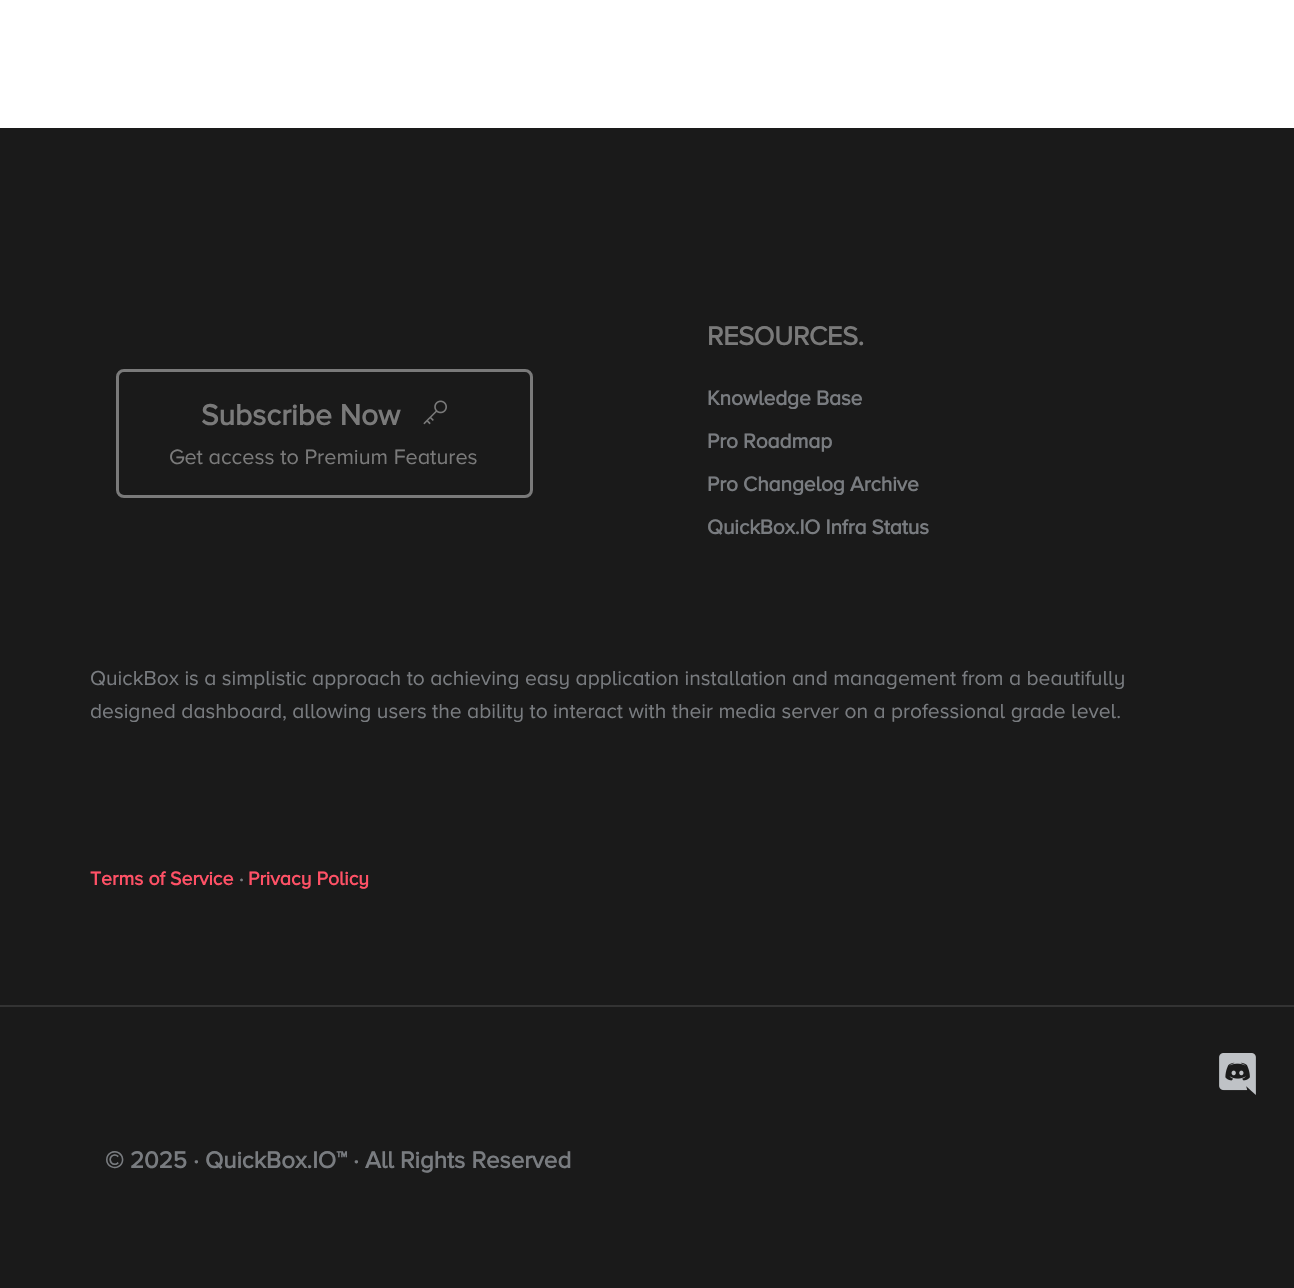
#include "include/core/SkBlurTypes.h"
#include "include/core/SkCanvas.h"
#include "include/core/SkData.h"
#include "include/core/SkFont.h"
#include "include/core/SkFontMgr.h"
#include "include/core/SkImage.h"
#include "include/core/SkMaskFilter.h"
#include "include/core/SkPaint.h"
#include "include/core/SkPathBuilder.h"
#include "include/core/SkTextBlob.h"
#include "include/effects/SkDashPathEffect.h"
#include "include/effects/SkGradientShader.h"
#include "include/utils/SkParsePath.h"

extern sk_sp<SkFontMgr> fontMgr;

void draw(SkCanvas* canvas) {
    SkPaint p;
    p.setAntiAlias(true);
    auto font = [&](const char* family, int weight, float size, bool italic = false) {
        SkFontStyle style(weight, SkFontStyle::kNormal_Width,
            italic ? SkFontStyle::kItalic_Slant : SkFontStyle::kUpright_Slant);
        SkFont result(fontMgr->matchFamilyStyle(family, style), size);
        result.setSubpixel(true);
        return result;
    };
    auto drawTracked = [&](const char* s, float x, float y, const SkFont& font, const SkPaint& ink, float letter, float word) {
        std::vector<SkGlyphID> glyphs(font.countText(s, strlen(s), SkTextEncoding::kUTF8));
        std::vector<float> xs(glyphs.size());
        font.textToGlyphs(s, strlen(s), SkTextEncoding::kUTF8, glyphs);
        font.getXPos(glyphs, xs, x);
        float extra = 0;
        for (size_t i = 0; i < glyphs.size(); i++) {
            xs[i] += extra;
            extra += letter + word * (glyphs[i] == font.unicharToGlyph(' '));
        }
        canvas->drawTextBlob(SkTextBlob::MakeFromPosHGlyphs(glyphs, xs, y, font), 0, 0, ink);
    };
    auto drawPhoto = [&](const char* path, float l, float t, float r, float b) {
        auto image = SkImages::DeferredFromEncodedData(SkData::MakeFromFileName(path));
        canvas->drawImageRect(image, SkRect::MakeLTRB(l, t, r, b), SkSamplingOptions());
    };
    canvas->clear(0xFFFFFFFF);
    p.setColor(0xFF1A1A1A);
    canvas->drawRect(SkRect::MakeLTRB(0, 128, 1294, 1005), p);
    p.setStyle(SkPaint::kStroke_Style);
    p.setStrokeWidth(3);
    p.setColor(0xFF7A7A7A);
    canvas->drawRoundRect(SkRect::MakeLTRB(117.5f, 370.5f, 531.5f, 496.5f), 6.5f, 6.5f, p);
    auto font1 = font("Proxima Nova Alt", 700, 30);
    p.setStyle(SkPaint::kFill_Style);
    canvas->drawString("Subscribe Now", 201, 425, font1, p);
    drawPhoto("media/1.png", 423, 400, 447, 425);
    auto font2 = font("Proxima Nova Alt", 400, 21.6f);
    canvas->drawString("Get access to Premium Features", 169, 464, font2, p);
    auto font3 = font("Proxima Nova Alt", 700, 27);
    drawTracked("RESOURCES.", 707, 345, font3, p, -0.25f, 0);
    auto font4 = font("Proxima Nova Alt", 700, 21);
    p.setColor(0xFF797C80);
    {
        const struct { const char* s; float x, y; } items[] = {
            {"Knowledge Base", 707, 405},
            {"Pro Roadmap", 707, 448},
            {"Pro Changelog Archive", 707, 491},
            {"QuickBox.IO Infra Status", 707, 534},
        };
        for (auto [s, x, y] : items) {
            drawTracked(s, x, y, font4, p, -0.15f, 0);
        }
    }
    auto font5 = font("Proxima Nova Alt", 400, 21);
    canvas->drawString("QuickBox is a simplistic approach to achieving easy application installation and management from a beautifully", 90, 685, font5, p);
    canvas->drawString("designed dashboard, allowing users the ability to interact with their media server on a professional grade level.", 90, 718, font5, p);
    auto font6 = font("Proxima Nova Alt", 700, 19.5f);
    p.setColor(0xFFFF5166);
    canvas->drawString("Terms of Service", 90, 885, font6, p);
    p.setColor(0xFF797C80);
    canvas->drawString("·", 239, 885, font6, p);
    p.setColor(0xFFFF5166);
    canvas->drawString("Privacy Policy", 248, 885, font6, p);
    p.setColor(0xFF1A1A1A);
    canvas->drawRect(SkRect::MakeLTRB(0, 1007, 1294, 1288), p);
    p.setColor(0xFF333333);
    canvas->drawRect(SkRect::MakeLTRB(0, 1005, 1294, 1007), p);
    drawPhoto("media/2.png", 1219, 1053, 1256, 1095);
    auto font7 = font("Proxima Nova Alt", 700, 24);
    p.setColor(0xFF797C80);
    canvas->drawString("© 2025 · QuickBox.IO™ · All Rights Reserved", 105, 1168, font7, p);
}
